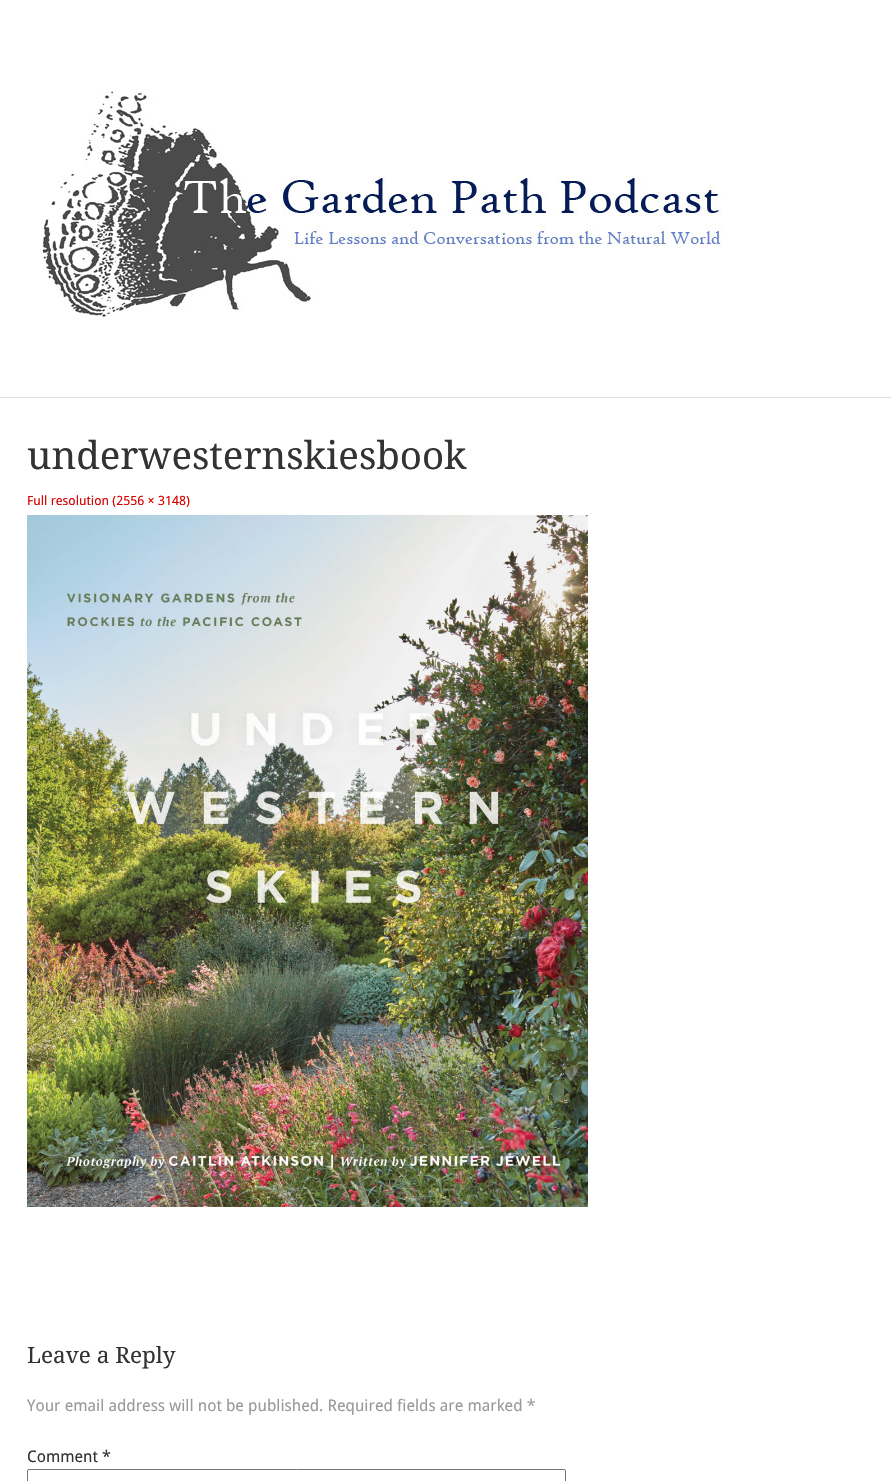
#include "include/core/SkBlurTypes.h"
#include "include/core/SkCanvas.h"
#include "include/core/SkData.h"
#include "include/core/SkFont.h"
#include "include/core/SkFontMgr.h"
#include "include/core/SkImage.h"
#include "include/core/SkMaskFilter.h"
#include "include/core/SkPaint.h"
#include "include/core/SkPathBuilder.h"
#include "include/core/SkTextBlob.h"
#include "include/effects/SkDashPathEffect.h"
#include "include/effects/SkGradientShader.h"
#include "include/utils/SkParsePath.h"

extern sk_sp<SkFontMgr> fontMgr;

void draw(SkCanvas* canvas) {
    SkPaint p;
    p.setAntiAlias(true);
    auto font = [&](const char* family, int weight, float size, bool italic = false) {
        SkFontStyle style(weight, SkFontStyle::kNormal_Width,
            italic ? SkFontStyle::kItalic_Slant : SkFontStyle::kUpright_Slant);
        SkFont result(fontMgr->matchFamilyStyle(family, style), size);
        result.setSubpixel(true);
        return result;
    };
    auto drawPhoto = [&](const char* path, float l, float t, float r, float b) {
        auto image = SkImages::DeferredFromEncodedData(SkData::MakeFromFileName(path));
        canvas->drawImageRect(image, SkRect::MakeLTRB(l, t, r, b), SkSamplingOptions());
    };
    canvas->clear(0xFFFFFFFF);
    p.setColor(0xFFDDDDDD);
    canvas->drawRect(SkRect::MakeLTRB(0, 397, 891, 398), p);
    drawPhoto("media/1.png", 42, 89, 722, 319);
    auto font1 = font("Droid Serif", 400, 38.4f);
    p.setColor(0xFF333333);
    canvas->drawString("underwesternskiesbook", 27, 469, font1, p);
    auto font2 = font("Droid Sans", 400, 12.75f);
    p.setColor(0xFFD90000);
    canvas->drawString("Full resolution (2556 × 3148)", 27, 505, font2, p);
    drawPhoto("media/2.png", 27, 515, 588, 1207);
    auto font3 = font("Droid Serif", 400, 22.5f);
    p.setColor(0xFF333333);
    canvas->drawString("Leave a Reply", 27, 1363, font3, p);
    auto font4 = font("Droid Sans", 400, 16);
    p.setColor(0xFF999999);
    canvas->drawString("Your email address will not be published. Required fields are marked *", 27, 1411, font4, p);
    p.setColor(0xFF333333);
    canvas->drawString("Comment *", 27, 1462, font4, p);
    p.setStyle(SkPaint::kStroke_Style);
    p.setStrokeWidth(1);
    p.setColor(0xFF767676);
    canvas->drawRoundRect(SkRect::MakeLTRB(27.5f, 1469.5f, 565.5f, 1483.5f), 1.5f, 1.5f, p);
}
